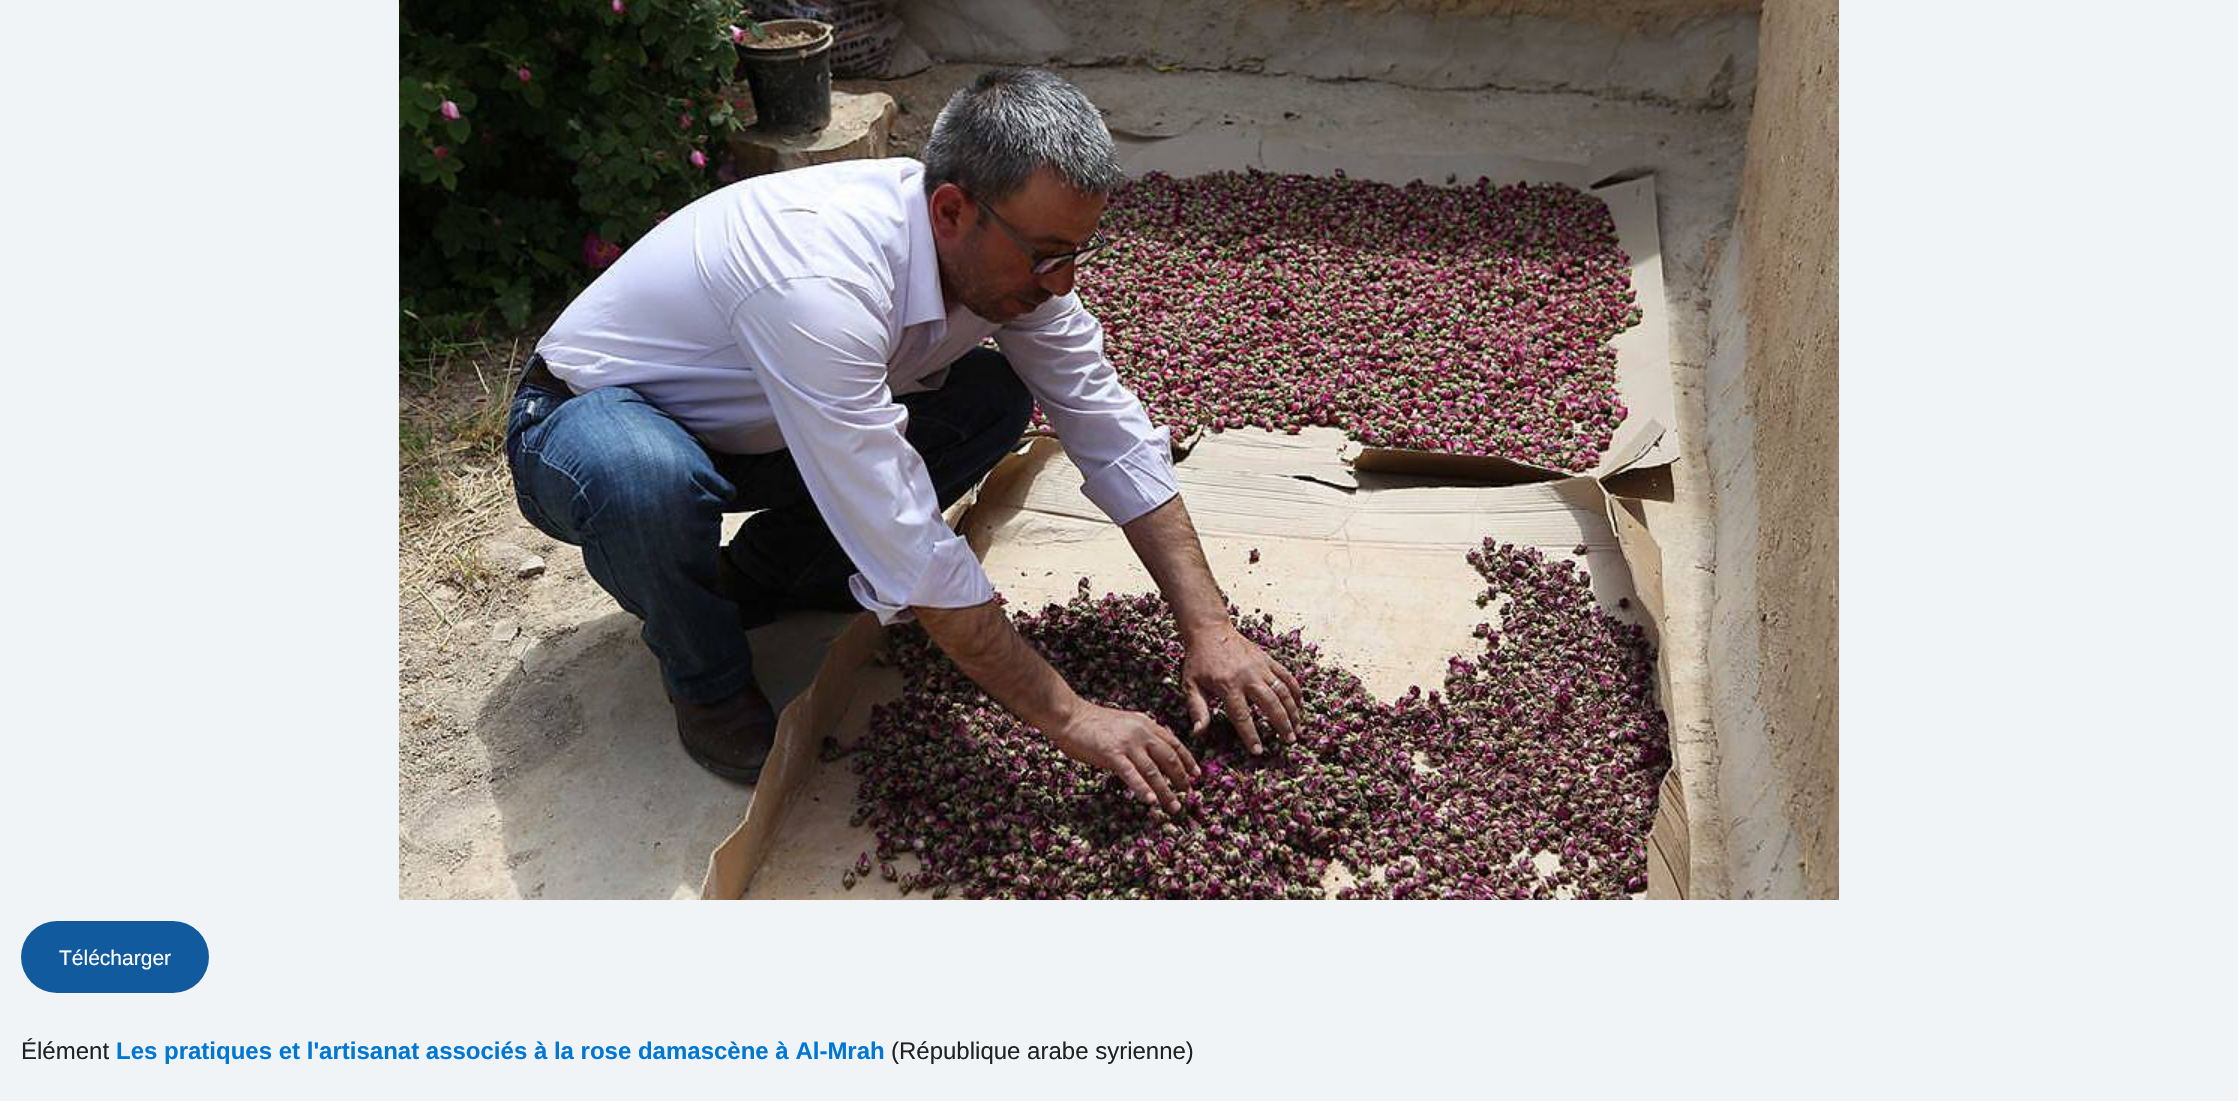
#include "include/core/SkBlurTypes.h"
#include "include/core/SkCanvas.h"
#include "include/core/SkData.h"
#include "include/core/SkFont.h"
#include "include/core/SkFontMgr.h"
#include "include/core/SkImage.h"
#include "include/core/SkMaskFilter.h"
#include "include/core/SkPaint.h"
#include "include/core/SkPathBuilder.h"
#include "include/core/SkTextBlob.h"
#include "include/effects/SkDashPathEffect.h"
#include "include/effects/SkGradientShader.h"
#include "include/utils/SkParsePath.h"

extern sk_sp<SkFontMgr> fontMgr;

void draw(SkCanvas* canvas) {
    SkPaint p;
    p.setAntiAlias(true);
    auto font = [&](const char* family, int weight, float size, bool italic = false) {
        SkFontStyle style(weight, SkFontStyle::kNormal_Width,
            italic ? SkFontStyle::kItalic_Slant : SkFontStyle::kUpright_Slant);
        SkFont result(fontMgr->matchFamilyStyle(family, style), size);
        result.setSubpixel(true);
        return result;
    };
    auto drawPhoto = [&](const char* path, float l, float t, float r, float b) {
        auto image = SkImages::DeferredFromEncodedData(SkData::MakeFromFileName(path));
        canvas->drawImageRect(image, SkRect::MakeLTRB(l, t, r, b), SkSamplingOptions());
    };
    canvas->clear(0xFFF1F4F6);
    drawPhoto("media/1.png", 399, 0, 1839, 900);
    p.setColor(0xFF115A9E);
    canvas->drawRoundRect(SkRect::MakeLTRB(21, 921, 209, 993), 36, 36, p);
    auto font1 = font("Liberation Sans", 400, 21);
    p.setColor(0xFFFFFFFF);
    canvas->drawString("Télécharger", 59, 965, font1, p);
    auto font2 = font("Liberation Sans", 400, 24);
    p.setColor(0xFF212121);
    canvas->drawString("Élément", 21, 1059, font2, p);
    auto font3 = font("Liberation Sans", 700, 24);
    p.setColor(0xFF0077D4);
    canvas->drawString("Les pratiques et l'artisanat associés à la rose damascène à Al-Mrah", 116, 1059, font3, p);
    p.setColor(0xFF212121);
    canvas->drawString("(République arabe syrienne)", 891, 1059, font2, p);
}
